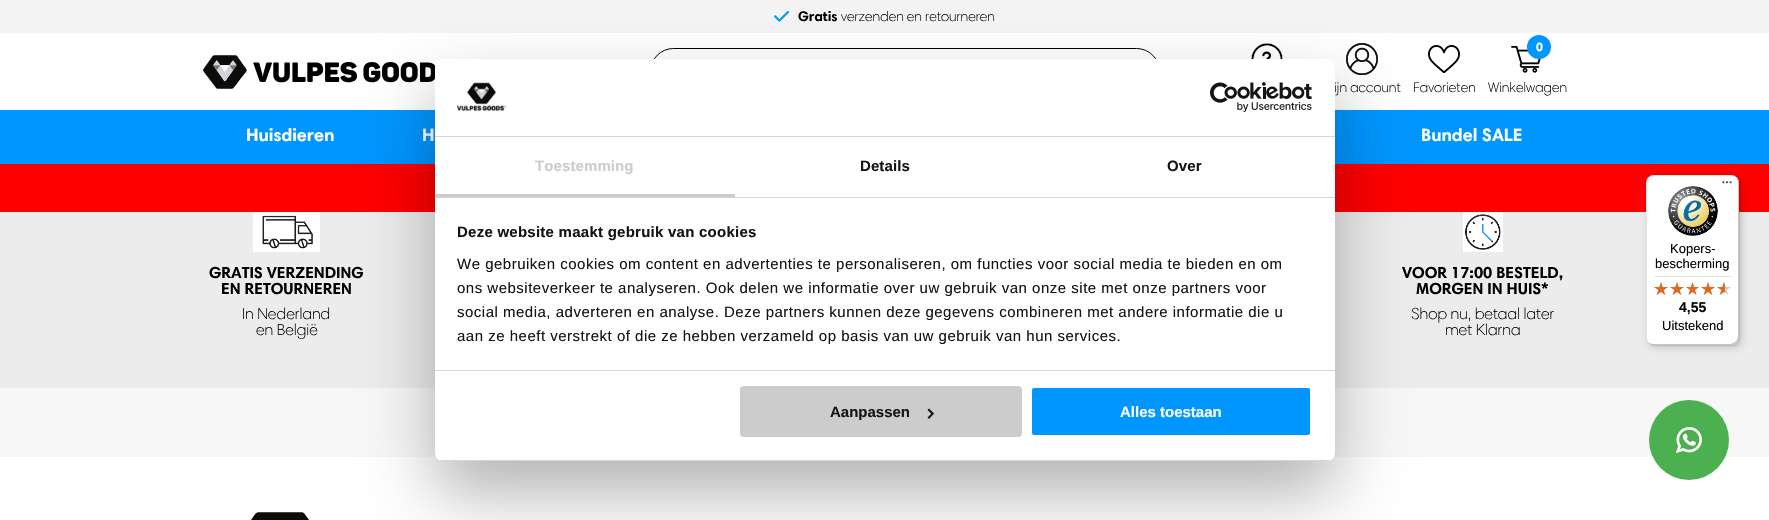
#include "include/core/SkBlurTypes.h"
#include "include/core/SkCanvas.h"
#include "include/core/SkData.h"
#include "include/core/SkFont.h"
#include "include/core/SkFontMgr.h"
#include "include/core/SkImage.h"
#include "include/core/SkMaskFilter.h"
#include "include/core/SkPaint.h"
#include "include/core/SkPathBuilder.h"
#include "include/core/SkTextBlob.h"
#include "include/effects/SkDashPathEffect.h"
#include "include/effects/SkGradientShader.h"
#include "include/utils/SkParsePath.h"

extern sk_sp<SkFontMgr> fontMgr;

void draw(SkCanvas* canvas) {
    SkPaint p;
    p.setAntiAlias(true);
    auto font = [&](const char* family, int weight, float size, bool italic = false) {
        SkFontStyle style(weight, SkFontStyle::kNormal_Width,
            italic ? SkFontStyle::kItalic_Slant : SkFontStyle::kUpright_Slant);
        SkFont result(fontMgr->matchFamilyStyle(family, style), size);
        result.setSubpixel(true);
        return result;
    };
    auto drawTracked = [&](const char* s, float x, float y, const SkFont& font, const SkPaint& ink, float letter, float word) {
        std::vector<SkGlyphID> glyphs(font.countText(s, strlen(s), SkTextEncoding::kUTF8));
        std::vector<float> xs(glyphs.size());
        font.textToGlyphs(s, strlen(s), SkTextEncoding::kUTF8, glyphs);
        font.getXPos(glyphs, xs, x);
        float extra = 0;
        for (size_t i = 0; i < glyphs.size(); i++) {
            xs[i] += extra;
            extra += letter + word * (glyphs[i] == font.unicharToGlyph(' '));
        }
        canvas->drawTextBlob(SkTextBlob::MakeFromPosHGlyphs(glyphs, xs, y, font), 0, 0, ink);
    };
    auto drawPhoto = [&](const char* path, float l, float t, float r, float b) {
        auto image = SkImages::DeferredFromEncodedData(SkData::MakeFromFileName(path));
        canvas->drawImageRect(image, SkRect::MakeLTRB(l, t, r, b), SkSamplingOptions());
    };
    canvas->clear(0xFFFFFFFF);
    p.setColor(0xFFECECEC);
    canvas->drawRect(SkRect::MakeLTRB(0, 212, 1769, 388), p);
    drawPhoto("media/8.png", 253, 212, 320, 252);
    drawPhoto("media/9.png", 1463, 212, 1503, 252);
    p.setColor(0x33E3E3E3);
    p.setMaskFilter(SkMaskFilter::MakeBlur(kNormal_SkBlurStyle, 2.5f));
    canvas->drawRect(SkRect::MakeLTRB(0, 3, 1769, 215), p);
    p.setMaskFilter(nullptr);
    p.setColor(0xFFFFFFFF);
    canvas->drawRect(SkRect::MakeLTRB(0, 33, 1769, 110), p);
    p.setColor(0xFFF4F4F4);
    canvas->drawRect(SkRect::MakeLTRB(0, 0, 1769, 33), p);
    drawPhoto("media/1.png", 774, 11, 789, 22);
    auto font1 = font("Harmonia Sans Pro", 700, 14);
    p.setColor(0xFF000000);
    canvas->drawString("Gratis", 798, 21, font1, p);
    auto font2 = font("Harmonia Sans Pro", 300, 14);
    canvas->drawString("verzenden en retourneren", 841, 21, font2, p);
    drawPhoto("media/2.png", 203, 55, 436, 89);
    p.setStyle(SkPaint::kStroke_Style);
    p.setStrokeWidth(1);
    canvas->drawRoundRect(SkRect::MakeLTRB(650.5f, 48.5f, 1159.5f, 94.5f), 23, 23, p);
    drawPhoto("media/3.png", 1251, 43, 1283, 59);
    drawPhoto("media/4.png", 1511, 46, 1541, 73);
    p.setStyle(SkPaint::kFill_Style);
    p.setColor(0xFF0096FF);
    canvas->drawCircle(1539, 47, 12, p);
    auto font3 = font("Harmonia Sans Pro", 700, 12);
    p.setColor(0xFFFFFFFF);
    canvas->drawString("0", 1536, 51, font3, p);
    p.setColor(0xFF000000);
    canvas->drawString("Winkelwagen", 1488, 92, font2, p);
    drawPhoto("media/5.png", 1346, 43, 1378, 75);
    canvas->drawString("ijn account", 1334, 92, font2, p);
    drawPhoto("media/6.png", 1428, 45, 1460, 73);
    canvas->drawString("Favorieten", 1413, 92, font2, p);
    p.setColor(0xFFF7F7F7);
    canvas->drawRect(SkRect::MakeLTRB(0, 388, 1769, 457), p);
    p.setColor(0xFF4CAF50);
    canvas->drawCircle(1689, 440, 40, p);
    drawPhoto("media/7.png", 1676, 427, 1702, 453);
    p.setColor(0xFF0096FF);
    canvas->drawRect(SkRect::MakeLTRB(0, 110, 1769, 164), p);
    auto font4 = font("Harmonia Sans Pro", 700, 18);
    p.setColor(0xFFFFFFFF);
    {
        const struct { const char* s; float x, y; } items[] = {
            {"Huisdieren", 246, 141},
            {"H", 422, 141},
            {"Bundel SALE", 1421, 141},
        };
        for (auto [s, x, y] : items) {
            canvas->drawString(s, x, y, font4, p);
        }
    }
    p.setColor(0xFFFF0000);
    canvas->drawRect(SkRect::MakeLTRB(0, 164, 1769, 212), p);
    auto font5 = font("Harmonia Sans Pro", 700, 16);
    p.setColor(0xFF000000);
    canvas->drawString("GRATIS VERZENDING", 209, 278, font5, p);
    canvas->drawString("EN RETOURNEREN", 221, 294, font5, p);
    auto font6 = font("Harmonia Sans Pro", 300, 16);
    canvas->drawString("In Nederland", 242, 319, font6, p);
    canvas->drawString("en België", 256, 335, font6, p);
    canvas->drawString("VOOR 17:00 BESTELD,", 1402, 278, font5, p);
    canvas->drawString("MORGEN IN HUIS*", 1416, 294, font5, p);
    canvas->drawString("Shop nu, betaal later", 1411, 319, font6, p);
    canvas->drawString("met Klarna", 1445, 335, font6, p);
    drawPhoto("media/10.png", 251, 512, 309, 520);
    p.setColor(0x4D000000);
    p.setMaskFilter(SkMaskFilter::MakeBlur(kNormal_SkBlurStyle, 34));
    canvas->drawRoundRect(SkRect::MakeLTRB(435, 91, 1335, 493), 8, 8, p);
    p.setMaskFilter(nullptr);
    p.setColor(0xFFFFFFFF);
    canvas->drawRoundRect(SkRect::MakeLTRB(435, 59, 1335, 461), 8, 8, p);
    p.setColor(0xFFD6D6D6);
    canvas->drawRect(SkRect::MakeLTRB(435, 136, 1335, 137), p);
    drawPhoto("media/11.png", 457, 82, 506, 112);
    drawPhoto("media/12.png", 1210, 82, 1312, 112);
    canvas->drawRect(SkRect::MakeLTRB(435, 197, 1335, 198), p);
    p.setColor(0xFFCCCCCC);
    canvas->drawRect(SkRect::MakeLTRB(435, 194, 735, 197), p);
    auto font7 = font("Liberation Sans", 700, 15);
    drawTracked("Toestemming", 535, 171, font7, p, 0.1f, 0);
    p.setColor(0xFF141414);
    drawTracked("Details", 860, 171, font7, p, 0.1f, 0);
    drawTracked("Over", 1167, 171, font7, p, 0.1f, 0);
    p.setColor(0xFFD6D6D6);
    canvas->drawRect(SkRect::MakeLTRB(435, 370, 1335, 371), p);
    p.setColor(0xFF141414);
    drawTracked("Deze website maakt gebruik van cookies", 457, 237, font7, p, 0.25f, 0);
    auto font8 = font("Liberation Sans", 400, 15);
    {
        const struct { const char* s; float x, y; } items[] = {
            {"We gebruiken cookies om content en advertenties te personaliseren, om functies voor social media te bieden en om", 457, 269},
            {"ons websiteverkeer te analyseren. Ook delen we informatie over uw gebruik van onze site met onze partners voor", 457, 293},
            {"social media, adverteren en analyse. Deze partners kunnen deze gegevens combineren met andere informatie die u", 457, 317},
            {"aan ze heeft verstrekt of die ze hebben verzameld op basis van uw gebruik van hun services.", 457, 341},
        };
        for (auto [s, x, y] : items) {
            drawTracked(s, x, y, font8, p, 0.5f, 0);
        }
    }
    canvas->save();
    canvas->clipPath(SkPathBuilder().moveTo(443, 59).lineTo(1327, 59).cubicTo(1331.5f, 59, 1335, 62.5f, 1335, 67).lineTo(1335, 453).cubicTo(1335, 457.5f, 1331.5f, 461, 1327, 461).lineTo(443, 461).cubicTo(438.5f, 461, 435, 457.5f, 435, 453).lineTo(435, 67).cubicTo(435, 62.5f, 438.5f, 59, 443, 59).close().detach(), true);
    p.setColor(0xFFD6D6D6);
    canvas->drawRect(SkRect::MakeLTRB(435, 460, 1335, 461), p);
    canvas->restore();
    p.setColor(0xFFCCCCCC);
    canvas->drawRoundRect(SkRect::MakeLTRB(741, 387, 1021, 436), 3, 3, p);
    p.setStyle(SkPaint::kStroke_Style);
    p.setStrokeWidth(2);
    canvas->drawRoundRect(SkRect::MakeLTRB(741, 387, 1021, 436), 3, 3, p);
    p.setStyle(SkPaint::kFill_Style);
    p.setColor(0xFF141414);
    canvas->drawString("Aanpassen", 830, 417, font7, p);
    canvas->drawPath(SkPathBuilder().moveTo(929, 408.5f).lineTo(934, 413.5f).lineTo(932.5f, 415).lineTo(927.5f, 410).close().detach(), p);
    canvas->drawPath(SkPathBuilder().moveTo(932.5f, 412.5f).lineTo(934, 413.5f).lineTo(929, 419).lineTo(927.5f, 417.5f).close().detach(), p);
    p.setColor(0xFF0096FF);
    canvas->drawRoundRect(SkRect::MakeLTRB(1031, 387, 1311, 436), 3, 3, p);
    p.setStyle(SkPaint::kStroke_Style);
    p.setColor(0xFFFFFFFF);
    canvas->drawRoundRect(SkRect::MakeLTRB(1031, 387, 1311, 436), 3, 3, p);
    p.setStyle(SkPaint::kFill_Style);
    canvas->drawString("Alles toestaan", 1120, 417, font7, p);
    p.setColor(0x26000000);
    p.setMaskFilter(SkMaskFilter::MakeBlur(kNormal_SkBlurStyle, 4));
    canvas->drawRoundRect(SkRect::MakeLTRB(1649, 178, 1742, 348), 8, 8, p);
    p.setMaskFilter(nullptr);
    p.setMaskFilter(SkMaskFilter::MakeBlur(kNormal_SkBlurStyle, 1));
    canvas->drawRoundRect(SkRect::MakeLTRB(1647, 176, 1740, 346), 8, 8, p);
    p.setMaskFilter(nullptr);
    p.setColor(0xFFFFFFFF);
    canvas->drawRoundRect(SkRect::MakeLTRB(1646, 175, 1739, 345), 8, 8, p);
    p.setColor(0x1A000000);
    canvas->drawPath(SkPathBuilder().moveTo(1655, 176).lineTo(1732, 176).cubicTo(1734, 176, 1736, 177, 1738, 179).cubicTo(1736, 177, 1734, 175, 1731, 175).lineTo(1654, 175).cubicTo(1650, 175, 1646, 179, 1646, 183).lineTo(1646, 337).cubicTo(1646, 340, 1648, 342, 1650, 344).cubicTo(1648, 342, 1647, 340, 1647, 338).lineTo(1647, 184).cubicTo(1647, 180, 1651, 176, 1655, 176).close().detach(), p);
    p.setColor(0x33000000);
    canvas->drawPath(SkPathBuilder().moveTo(1647, 341).cubicTo(1649, 343, 1651, 345, 1654, 345).lineTo(1731, 345).cubicTo(1735, 345, 1739, 341, 1739, 337).lineTo(1739, 183).cubicTo(1739, 180, 1737, 178, 1735, 176).cubicTo(1737, 178, 1738, 180, 1738, 182).lineTo(1738, 336).cubicTo(1738, 340, 1734, 344, 1730, 344).lineTo(1653, 344).cubicTo(1651, 344, 1649, 343, 1647, 341).close().detach(), p);
    p.setColor(0x33323232);
    canvas->drawPath(SkPathBuilder().moveTo(1648, 342).cubicTo(1649, 344, 1652, 345, 1654, 345).lineTo(1731, 345).cubicTo(1735, 345, 1739, 341, 1739, 337).lineTo(1739, 183).cubicTo(1739, 181, 1738, 178, 1736, 177).cubicTo(1737, 178, 1738, 180, 1738, 182).lineTo(1738, 336).cubicTo(1738, 341, 1735, 344, 1730, 344).lineTo(1653, 344).cubicTo(1651, 344, 1649, 343, 1648, 342).close().detach(), p);
    p.setColor(0x4DFFFFFF);
    canvas->drawPath(SkPathBuilder().moveTo(1646, 336).lineTo(1646, 337).cubicTo(1646, 341, 1650, 345, 1654, 345).lineTo(1731, 345).cubicTo(1735, 345, 1739, 341, 1739, 337).lineTo(1739, 183).cubicTo(1739, 181, 1738, 178, 1736, 177).cubicTo(1737, 178, 1738, 180, 1738, 182).lineTo(1738, 336).cubicTo(1738, 341, 1735, 344, 1730, 344).lineTo(1654, 344).cubicTo(1649, 344, 1646, 341, 1646, 336).close().detach(), p);
    drawPhoto("media/13.png", 1722, 181, 1732, 184);
    drawPhoto("media/14.png", 1668, 186, 1718, 236);
    auto font9 = font("Liberation Sans", 400, 13);
    p.setColor(0xFF000000);
    canvas->drawString("Kopers-", 1670, 253, font9, p);
    canvas->drawString("bescherming", 1655, 268, font9, p);
    p.setColor(0xFFE5E5E5);
    canvas->drawRect(SkRect::MakeLTRB(1654, 276, 1731, 277), p);
    drawPhoto("media/15.png", 1654, 282, 1668, 295);
    drawPhoto("media/15.png", 1670, 282, 1684, 295);
    drawPhoto("media/16.png", 1686, 282, 1699, 295);
    drawPhoto("media/15.png", 1701, 282, 1715, 295);
    drawPhoto("media/15.png", 1717, 282, 1731, 295);
    drawPhoto("media/17.png", 1654, 282, 1668, 295);
    drawPhoto("media/17.png", 1670, 282, 1684, 295);
    drawPhoto("media/18.png", 1686, 282, 1699, 295);
    drawPhoto("media/17.png", 1701, 282, 1715, 295);
    drawPhoto("media/19.png", 1717, 282, 1725, 295);
    auto font10 = font("Liberation Sans", 700, 14);
    p.setColor(0xFF000000);
    canvas->drawString("4,55", 1679, 312, font10, p);
    canvas->drawString("Uitstekend", 1662, 330, font9, p);
}
